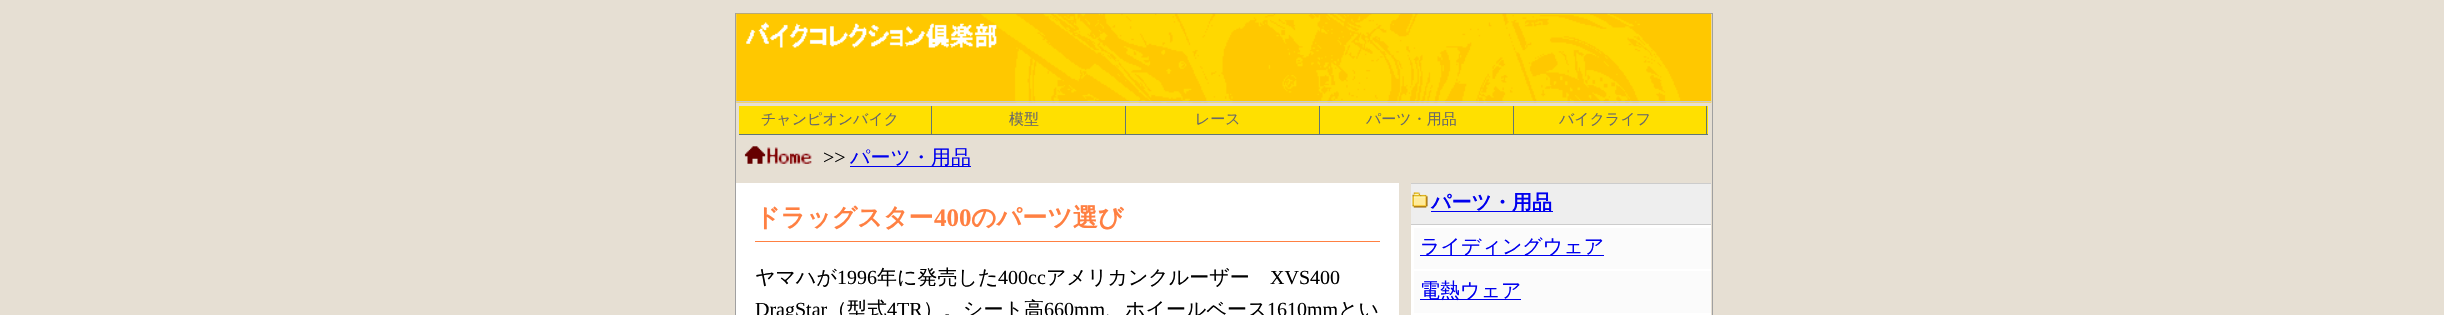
#include "include/core/SkBlurTypes.h"
#include "include/core/SkCanvas.h"
#include "include/core/SkData.h"
#include "include/core/SkFont.h"
#include "include/core/SkFontMgr.h"
#include "include/core/SkImage.h"
#include "include/core/SkMaskFilter.h"
#include "include/core/SkPaint.h"
#include "include/core/SkPathBuilder.h"
#include "include/core/SkTextBlob.h"
#include "include/effects/SkDashPathEffect.h"
#include "include/effects/SkGradientShader.h"
#include "include/utils/SkParsePath.h"

extern sk_sp<SkFontMgr> fontMgr;

void draw(SkCanvas* canvas) {
    SkPaint p;
    p.setAntiAlias(true);
    auto font = [&](const char* family, int weight, float size, bool italic = false) {
        SkFontStyle style(weight, SkFontStyle::kNormal_Width,
            italic ? SkFontStyle::kItalic_Slant : SkFontStyle::kUpright_Slant);
        SkFont result(fontMgr->matchFamilyStyle(family, style), size);
        result.setSubpixel(true);
        return result;
    };
    auto drawPhoto = [&](const char* path, float l, float t, float r, float b) {
        auto image = SkImages::DeferredFromEncodedData(SkData::MakeFromFileName(path));
        canvas->drawImageRect(image, SkRect::MakeLTRB(l, t, r, b), SkSamplingOptions());
    };
    canvas->clear(0xFFE6DFD3);
    p.setStyle(SkPaint::kStroke_Style);
    p.setStrokeWidth(1);
    p.setColor(0xFFA0A0A0);
    canvas->drawRect(SkRect::MakeLTRB(735.5f, 13.5f, 1712.5f, 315.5f), p);
    drawPhoto("media/1.png", 736, 13, 1712, 103);
    p.setStyle(SkPaint::kFill_Style);
    p.setColor(0xFFCCCCCC);
    canvas->drawRect(SkRect::MakeLTRB(736, 101, 1711, 102), p);
    drawPhoto("media/2.png", 746, 22, 997, 48);
    {
        const struct { float l, t, r, b; SkColor color; } items[] = {
            {739, 106, 1125, 134, 0xFFFFE000},
            {931, 106, 932, 135, 0xFF637775},
            {739, 134, 933, 135, 0xFF637775},
        };
        for (auto [l, t, r, b, color] : items) {
            p.setColor(color);
            canvas->drawRect(SkRect::MakeLTRB(l, t, r, b), p);
        }
    }
    auto font1 = font("WenQuanYi Zen Hei", 500, 15);
    p.setColor(0xFF696969);
    canvas->drawString("チャンピオンバイク", 761, 124, font1, p);
    p.setColor(0xFF637775);
    canvas->drawRect(SkRect::MakeLTRB(1125, 106, 1126, 135), p);
    canvas->drawRect(SkRect::MakeLTRB(933, 134, 1126, 135), p);
    p.setColor(0xFF696969);
    canvas->drawString("模型", 1009, 124, font1, p);
    {
        const struct { float l, t, r, b; SkColor color; } items[] = {
            {1126, 106, 1319, 134, 0xFFFFE000},
            {1319, 106, 1320, 135, 0xFF637775},
            {1126, 134, 1320, 135, 0xFF637775},
        };
        for (auto [l, t, r, b, color] : items) {
            p.setColor(color);
            canvas->drawRect(SkRect::MakeLTRB(l, t, r, b), p);
        }
    }
    p.setColor(0xFF696969);
    canvas->drawString("レース", 1195, 124, font1, p);
    {
        const struct { float l, t, r, b; SkColor color; } items[] = {
            {1320, 106, 1513, 134, 0xFFFFE000},
            {1513, 106, 1514, 135, 0xFF637775},
            {1320, 134, 1514, 135, 0xFF637775},
        };
        for (auto [l, t, r, b, color] : items) {
            p.setColor(color);
            canvas->drawRect(SkRect::MakeLTRB(l, t, r, b), p);
        }
    }
    p.setColor(0xFF696969);
    canvas->drawString("パーツ・用品", 1366, 124, font1, p);
    {
        const struct { float l, t, r, b; SkColor color; } items[] = {
            {1514, 106, 1708, 134, 0xFFFFE000},
            {1706, 106, 1707, 135, 0xFF637775},
            {1514, 134, 1708, 135, 0xFF637775},
        };
        for (auto [l, t, r, b, color] : items) {
            p.setColor(color);
            canvas->drawRect(SkRect::MakeLTRB(l, t, r, b), p);
        }
    }
    p.setColor(0xFF696969);
    canvas->drawString("バイクライフ", 1559, 124, font1, p);
    drawPhoto("media/3.png", 744, 146, 812, 164);
    auto font2 = font("Liberation Serif", 400, 20);
    p.setColor(0xFF000000);
    canvas->drawString(">>", 823, 164, font2, p);
    p.setColor(0xFF0000EE);
    canvas->drawRect(SkRect::MakeLTRB(850, 166, 971, 167), p);
    auto font3 = font("WenQuanYi Zen Hei", 500, 20);
    canvas->drawString("パーツ・用品", 850, 164, font3, p);
    p.setColor(0xFFFFFFFF);
    canvas->drawRect(SkRect::MakeLTRB(736, 183, 1399, 315), p);
    p.setColor(0xFFFF8042);
    canvas->drawRect(SkRect::MakeLTRB(755, 241, 1380, 242), p);
    auto font4 = font("WenQuanYi Zen Hei", 700, 25);
    canvas->drawString("ドラッグスター", 755, 226, font4, p);
    auto font5 = font("Liberation Serif", 700, 25);
    canvas->drawString("400", 934, 226, font5, p);
    canvas->drawString("のパーツ選び", 971, 226, font4, p);
    p.setColor(0xFF000000);
    canvas->drawString("ヤマハが", 755, 284, font3, p);
    canvas->drawString("1996", 837, 284, font2, p);
    canvas->drawString("年に発売した", 877, 284, font3, p);
    canvas->drawString("400cc", 998, 284, font2, p);
    canvas->drawString("アメリカンクルーザー", 1046, 284, font3, p);
    canvas->drawString("XVS400", 1270, 284, font2, p);
    canvas->drawString("DragStar", 755, 316, font2, p);
    canvas->drawString("（型式", 827, 316, font3, p);
    canvas->drawString("4TR", 887, 316, font2, p);
    canvas->drawString("）。シート高", 923, 316, font3, p);
    canvas->drawString("660mm", 1044, 316, font2, p);
    canvas->drawString("、ホイールベース", 1105, 316, font3, p);
    canvas->drawString("1610mm", 1267, 316, font2, p);
    canvas->drawString("とい", 1338, 316, font3, p);
    p.setColor(0xFFFFFFFF);
    canvas->drawRect(SkRect::MakeLTRB(1411, 225, 1711, 315), p);
    p.setColor(0xFFEEEEEE);
    canvas->drawRect(SkRect::MakeLTRB(1411, 184, 1711, 224), p);
    drawPhoto("media/4.png", 1412, 192, 1428, 208);
    {
        const struct { float l, t, r, b; SkColor color; } items[] = {
            {1411, 183, 1711, 184, 0xFFCCCCCC},
            {1411, 224, 1711, 225, 0xFFCCCCCC},
            {1431, 211, 1553, 212, 0xFF0000EE},
        };
        for (auto [l, t, r, b, color] : items) {
            p.setColor(color);
            canvas->drawRect(SkRect::MakeLTRB(l, t, r, b), p);
        }
    }
    auto font6 = font("WenQuanYi Zen Hei", 700, 20);
    canvas->drawString("パーツ・用品", 1431, 209, font6, p);
    p.setColor(0xFFFBFBFB);
    canvas->drawRect(SkRect::MakeLTRB(1414, 228, 1711, 269), p);
    p.setColor(0xFF0000EE);
    canvas->drawRect(SkRect::MakeLTRB(1420, 255, 1604, 256), p);
    canvas->drawString("ライディングウェア", 1420, 253, font3, p);
    p.setColor(0xFFFBFBFB);
    canvas->drawRect(SkRect::MakeLTRB(1414, 271, 1711, 313), p);
    p.setColor(0xFF0000EE);
    canvas->drawRect(SkRect::MakeLTRB(1420, 299, 1521, 300), p);
    canvas->drawString("電熱ウェア", 1420, 297, font3, p);
}
